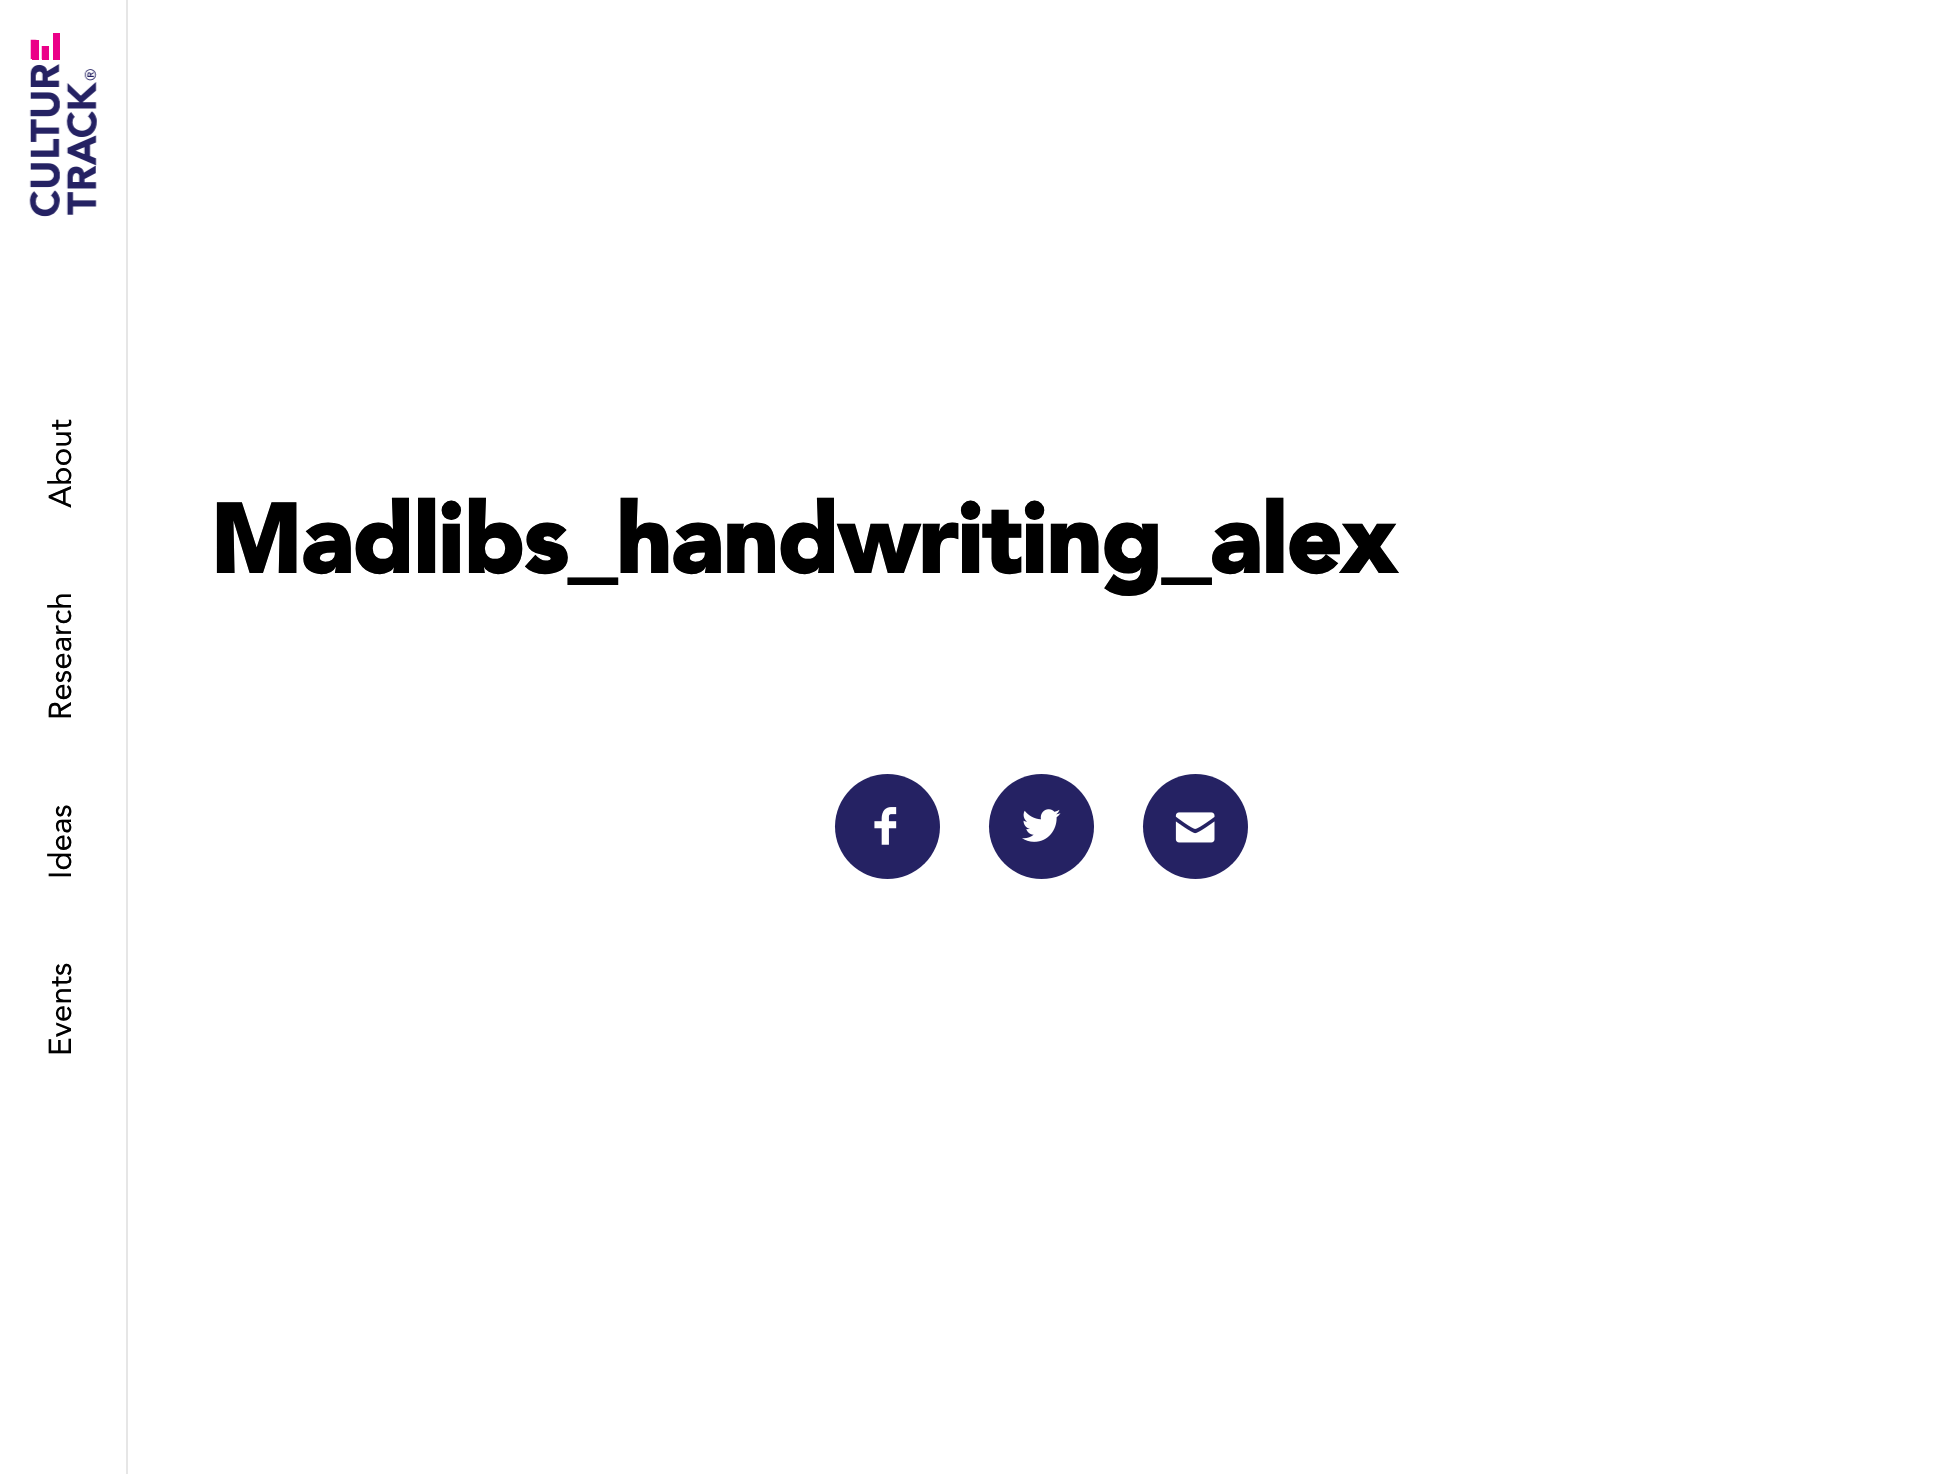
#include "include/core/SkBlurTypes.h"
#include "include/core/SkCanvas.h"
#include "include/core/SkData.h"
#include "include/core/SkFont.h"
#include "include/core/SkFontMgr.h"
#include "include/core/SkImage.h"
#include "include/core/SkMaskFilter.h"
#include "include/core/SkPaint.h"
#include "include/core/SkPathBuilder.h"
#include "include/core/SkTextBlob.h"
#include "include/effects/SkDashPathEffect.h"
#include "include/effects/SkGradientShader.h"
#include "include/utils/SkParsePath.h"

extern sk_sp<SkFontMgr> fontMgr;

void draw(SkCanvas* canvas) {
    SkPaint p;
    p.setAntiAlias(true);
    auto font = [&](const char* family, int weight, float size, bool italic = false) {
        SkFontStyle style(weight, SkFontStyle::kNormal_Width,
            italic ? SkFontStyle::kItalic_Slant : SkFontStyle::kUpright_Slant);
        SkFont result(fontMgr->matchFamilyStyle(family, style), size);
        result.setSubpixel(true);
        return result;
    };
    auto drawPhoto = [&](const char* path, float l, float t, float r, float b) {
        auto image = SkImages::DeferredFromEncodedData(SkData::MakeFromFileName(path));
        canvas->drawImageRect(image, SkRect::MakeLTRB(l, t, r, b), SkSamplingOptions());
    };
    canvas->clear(0xFFFFFFFF);
    drawPhoto("media/1.png", 29, 39, 97, 217);
    {
        const struct { float l, t, r, b; SkColor color; } items[] = {
            {32, 40, 39, 60, 0xFFEB0088},
            {42, 46, 49, 60, 0xFFEB0088},
            {53, 33, 60, 60, 0xFFEB0088},
            {126, 0, 128, 1474, 0xFFE6E6E6},
        };
        for (auto [l, t, r, b, color] : items) {
            p.setColor(color);
            canvas->drawRect(SkRect::MakeLTRB(l, t, r, b), p);
        }
    }
    auto font1 = font("Avenir", 400, 31.5f);
    p.setColor(0xFF000000);
    canvas->save();
    canvas->rotate(-90, 71, 508);
    canvas->drawString("About", 71, 508, font1, p);
    canvas->restore();
    canvas->save();
    canvas->rotate(-90, 71, 720);
    canvas->drawString("Research", 71, 720, font1, p);
    canvas->restore();
    canvas->save();
    canvas->rotate(-90, 71, 879);
    canvas->drawString("Ideas", 71, 879, font1, p);
    canvas->restore();
    canvas->save();
    canvas->rotate(-90, 71, 1056);
    canvas->drawString("Events", 71, 1056, font1, p);
    canvas->restore();
    auto font2 = font("Avenir", 700, 96);
    canvas->drawString("Madlibs_handwriting_alex", 210, 573, font2, p);
    p.setColor(0xFF252263);
    canvas->drawCircle(887.5f, 826.5f, 52.5f, p);
    drawPhoto("media/2.png", 874, 807, 897, 845);
    canvas->drawCircle(1041.5f, 826.5f, 52.5f, p);
    drawPhoto("media/3.png", 1022, 809, 1061, 842);
    canvas->drawCircle(1195.5f, 826.5f, 52.5f, p);
    drawPhoto("media/4.png", 1175, 812, 1215, 843);
}
